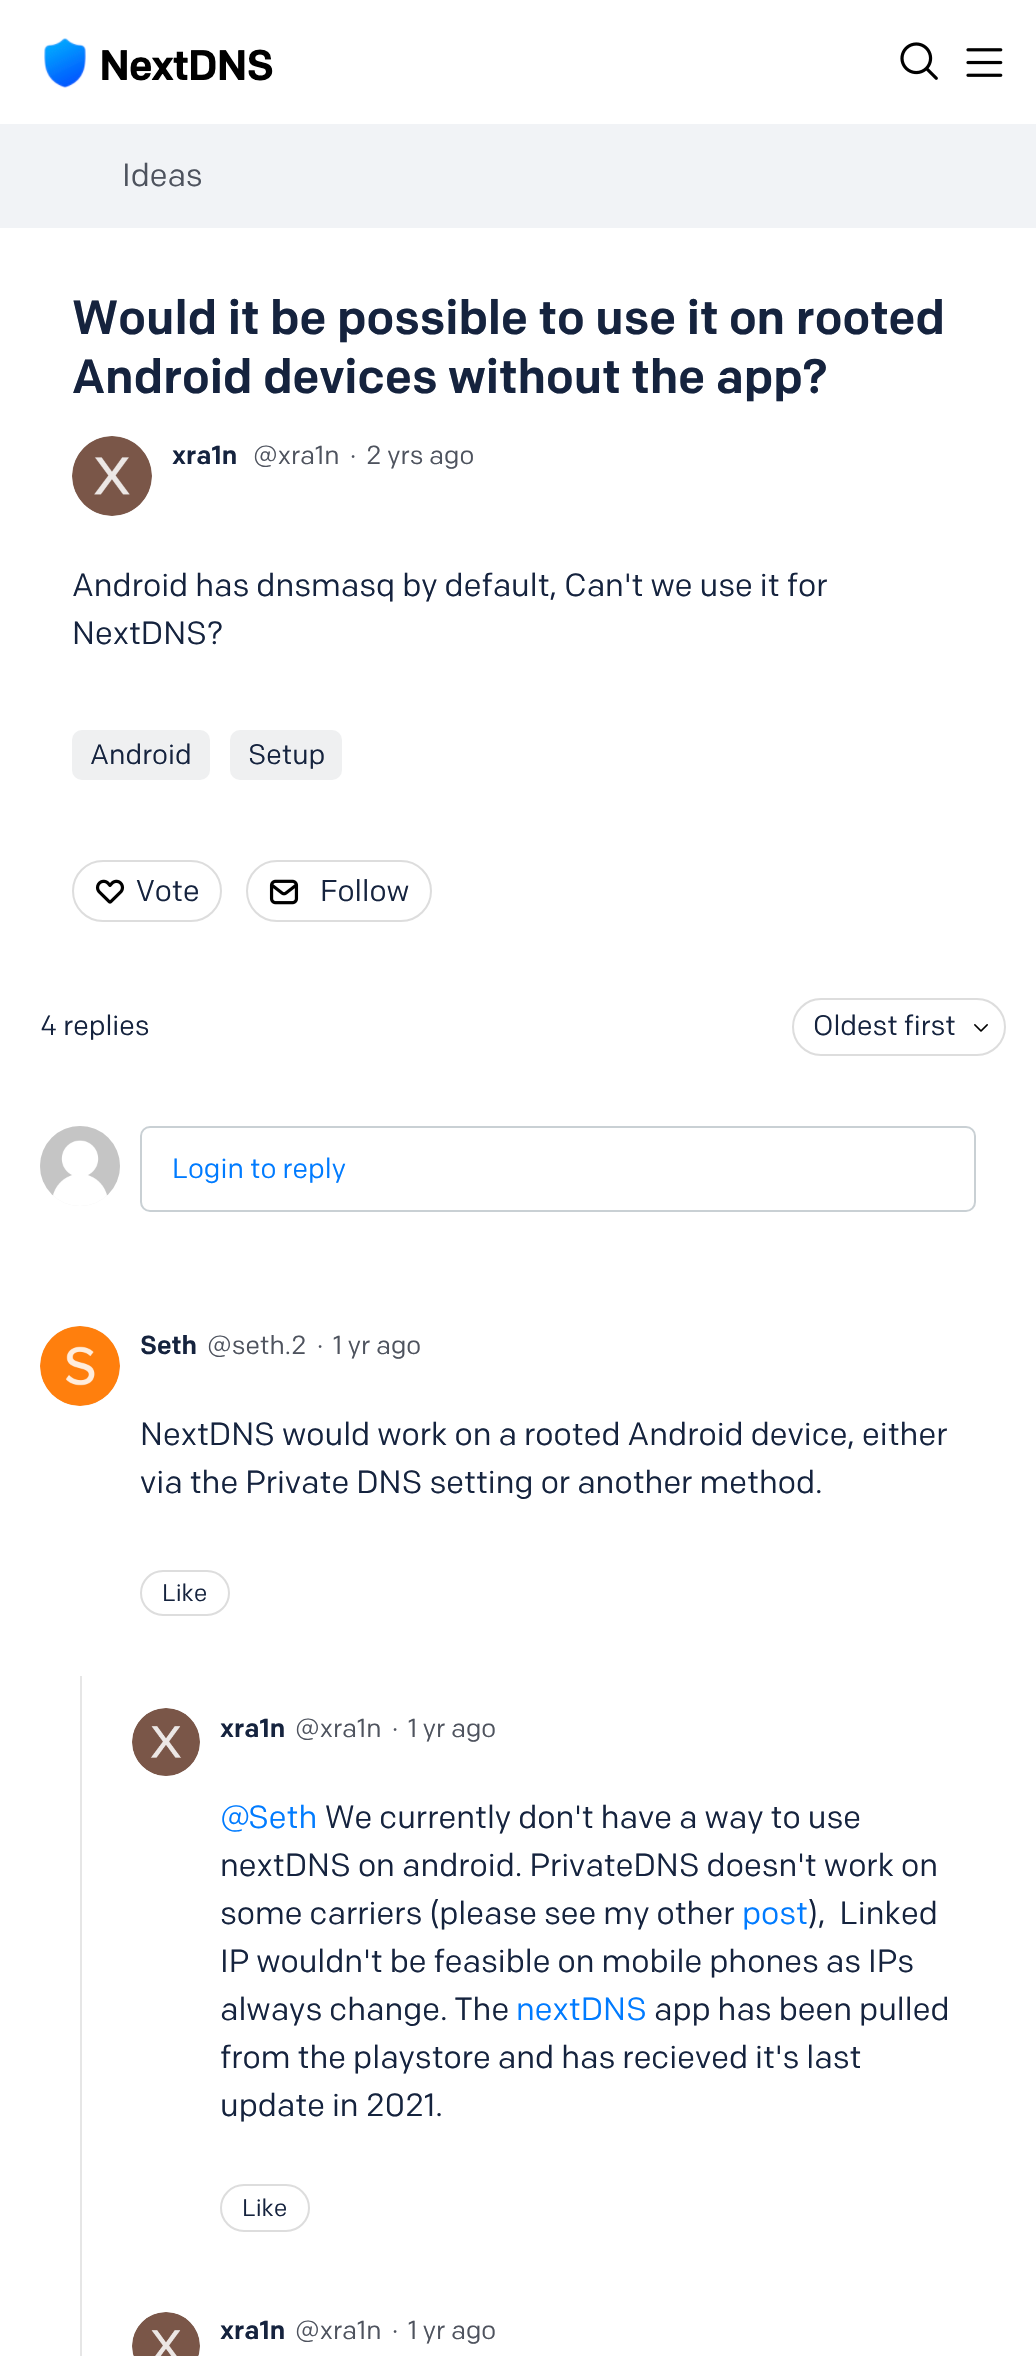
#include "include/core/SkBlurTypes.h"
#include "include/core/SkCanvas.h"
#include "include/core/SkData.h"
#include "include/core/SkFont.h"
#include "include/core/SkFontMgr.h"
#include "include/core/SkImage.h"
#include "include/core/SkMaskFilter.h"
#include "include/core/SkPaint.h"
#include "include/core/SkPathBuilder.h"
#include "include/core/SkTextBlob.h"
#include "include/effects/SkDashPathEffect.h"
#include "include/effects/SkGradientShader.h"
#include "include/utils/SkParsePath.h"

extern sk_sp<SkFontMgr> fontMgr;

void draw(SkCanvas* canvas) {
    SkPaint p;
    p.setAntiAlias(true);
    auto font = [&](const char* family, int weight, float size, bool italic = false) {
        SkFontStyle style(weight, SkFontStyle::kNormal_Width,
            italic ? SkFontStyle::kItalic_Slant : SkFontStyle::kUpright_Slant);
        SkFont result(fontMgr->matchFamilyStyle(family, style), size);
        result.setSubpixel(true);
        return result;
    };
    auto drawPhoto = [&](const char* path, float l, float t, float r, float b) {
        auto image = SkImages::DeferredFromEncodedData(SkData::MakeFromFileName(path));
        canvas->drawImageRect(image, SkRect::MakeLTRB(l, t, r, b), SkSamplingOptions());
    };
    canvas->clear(0xFFF1F3F6);
    p.setColor(0xFFFFFFFF);
    canvas->drawRect(SkRect::MakeLTRB(0, 0, 1036, 124), p);
    drawPhoto("media/1.png", 44, 38, 273, 88);
    drawPhoto("media/2.png", 900, 42, 938, 80);
    drawPhoto("media/3.png", 966, 48, 1003, 77);
    auto font1 = font("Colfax", 400, 32);
    p.setColor(0xFF4E535E);
    canvas->drawString("Ideas", 122, 186, font1, p);
    p.setColor(0xFFFFFFFF);
    canvas->drawRect(SkRect::MakeLTRB(0, 228, 1036, 2356), p);
    auto font2 = font("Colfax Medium", 500, 48);
    p.setColor(0xFF15233E);
    canvas->drawString("Would it be possible to use it on rooted", 72, 334, font2, p);
    canvas->drawString("Android devices without the app?", 72, 393, font2, p);
    p.setColor(0xFFEFEFEF);
    canvas->drawCircle(112, 476, 40, p);
    drawPhoto("media/4.png", 72, 436, 152, 516);
    auto font3 = font("Colfax Medium", 500, 26);
    p.setColor(0xFF15233E);
    canvas->drawString("xra1n", 172, 464, font3, p);
    auto font4 = font("Colfax", 400, 26);
    p.setColor(0xFF4E535E);
    {
        const struct { const char* s; float x, y; } items[] = {
            {"@xra1n", 253, 464},
            {"·", 350, 464},
            {"2 yrs ago", 366, 464},
        };
        for (auto [s, x, y] : items) {
            canvas->drawString(s, x, y, font4, p);
        }
    }
    p.setColor(0xFF15233E);
    canvas->drawString("Android has dnsmasq by default, Can't we use it for", 72, 596, font1, p);
    canvas->drawString("NextDNS?", 72, 644, font1, p);
    p.setColor(0xFFEFF0F1);
    canvas->drawRoundRect(SkRect::MakeLTRB(72, 730, 210, 780), 10, 10, p);
    auto font5 = font("Colfax", 400, 28);
    p.setColor(0xFF15233E);
    canvas->drawString("Android", 90, 764, font5, p);
    p.setColor(0xFFEFF0F1);
    canvas->drawRoundRect(SkRect::MakeLTRB(230, 730, 342, 780), 10, 10, p);
    p.setColor(0xFF15233E);
    canvas->drawString("Setup", 248, 764, font5, p);
    p.setStyle(SkPaint::kStroke_Style);
    p.setStrokeWidth(2);
    p.setColor(0xFFDDDDDD);
    canvas->drawRoundRect(SkRect::MakeLTRB(73, 861, 221, 921), 30, 30, p);
    drawPhoto("media/5.png", 95, 879, 125, 904);
    auto font6 = font("Colfax", 400, 30);
    p.setStyle(SkPaint::kFill_Style);
    p.setColor(0xFF15233E);
    canvas->drawString("Vote", 136, 901, font6, p);
    p.setStyle(SkPaint::kStroke_Style);
    p.setColor(0xFFDDDDDD);
    canvas->drawRoundRect(SkRect::MakeLTRB(247, 861, 431, 921), 30, 30, p);
    drawPhoto("media/6.png", 269, 879, 299, 905);
    p.setStyle(SkPaint::kFill_Style);
    p.setColor(0xFF15233E);
    canvas->drawString("Follow", 320, 901, font6, p);
    canvas->drawString("4 replies", 40, 1035, font5, p);
    p.setStyle(SkPaint::kStroke_Style);
    p.setColor(0xFFDDDDDD);
    canvas->drawRoundRect(SkRect::MakeLTRB(793, 999, 1005, 1055), 28, 28, p);
    p.setStyle(SkPaint::kFill_Style);
    p.setColor(0xFF15233E);
    canvas->drawString("Oldest first", 813, 1035, font5, p);
    drawPhoto("media/7.png", 974, 1024, 988, 1032);
    p.setColor(0xFFEFEFEF);
    canvas->drawCircle(80, 1166, 40, p);
    drawPhoto("media/8.png", 40, 1126, 120, 1206);
    p.setStyle(SkPaint::kStroke_Style);
    p.setColor(0xFFC9D0D4);
    canvas->drawRoundRect(SkRect::MakeLTRB(141, 1127, 975, 1211), 9, 9, p);
    p.setStyle(SkPaint::kFill_Style);
    p.setColor(0xFF007BFF);
    canvas->drawString("Login to reply", 172, 1178, font5, p);
    p.setColor(0xFFEFEFEF);
    canvas->drawCircle(80, 1366, 40, p);
    drawPhoto("media/9.png", 40, 1326, 120, 1406);
    p.setColor(0xFF15233E);
    canvas->drawString("Seth", 140, 1354, font3, p);
    p.setColor(0xFF4E535E);
    {
        const struct { const char* s; float x, y; } items[] = {
            {"@seth.2", 207, 1354},
            {"·", 317, 1354},
            {"1 yr ago", 333, 1354},
        };
        for (auto [s, x, y] : items) {
            canvas->drawString(s, x, y, font4, p);
        }
    }
    p.setColor(0xFF15233E);
    canvas->drawString("NextDNS would work on a rooted Android device, either", 140, 1445, font1, p);
    canvas->drawString("via the Private DNS setting or another method.", 140, 1493, font1, p);
    p.setStyle(SkPaint::kStroke_Style);
    p.setColor(0xFFDDDDDD);
    canvas->drawRoundRect(SkRect::MakeLTRB(141, 1571, 229, 1615), 22, 22, p);
    auto font7 = font("Colfax", 400, 24);
    p.setStyle(SkPaint::kFill_Style);
    p.setColor(0xFF15233E);
    canvas->drawString("Like", 162, 1601, font7, p);
    p.setColor(0xFFE6E6E6);
    canvas->drawRect(SkRect::MakeLTRB(80, 1676, 82, 2356), p);
    p.setColor(0xFFEFEFEF);
    canvas->drawCircle(166, 1742, 34, p);
    drawPhoto("media/10.png", 132, 1708, 200, 1776);
    p.setColor(0xFF15233E);
    canvas->drawString("xra1n", 220, 1737, font3, p);
    p.setColor(0xFF4E535E);
    {
        const struct { const char* s; float x, y; } items[] = {
            {"@xra1n", 295, 1737},
            {"·", 392, 1737},
            {"1 yr ago", 408, 1737},
        };
        for (auto [s, x, y] : items) {
            canvas->drawString(s, x, y, font4, p);
        }
    }
    p.setColor(0xFF007BFF);
    canvas->drawString("@", 220, 1828, font1, p);
    canvas->drawString("Seth", 248, 1828, font1, p);
    p.setColor(0xFF15233E);
    {
        const struct { const char* s; float x, y; } items[] = {
            {"We currently don't have a way to use", 325, 1828},
            {"nextDNS on android. PrivateDNS doesn't work on", 220, 1876},
            {"some carriers (please see my other", 220, 1924},
        };
        for (auto [s, x, y] : items) {
            canvas->drawString(s, x, y, font1, p);
        }
    }
    p.setColor(0xFF007BFF);
    canvas->drawString("post", 742, 1924, font1, p);
    p.setColor(0xFF15233E);
    {
        const struct { const char* s; float x, y; } items[] = {
            {"),  Linked", 808, 1924},
            {"IP wouldn't be feasible on mobile phones as IPs", 220, 1972},
            {"always change. The", 220, 2020},
        };
        for (auto [s, x, y] : items) {
            canvas->drawString(s, x, y, font1, p);
        }
    }
    p.setColor(0xFF007BFF);
    canvas->drawString("nextDNS", 516, 2020, font1, p);
    p.setColor(0xFF15233E);
    {
        const struct { const char* s; float x, y; } items[] = {
            {"app has been pulled", 654, 2020},
            {"from the playstore and has recieved it's last", 220, 2068},
            {"update in 2021.", 220, 2116},
        };
        for (auto [s, x, y] : items) {
            canvas->drawString(s, x, y, font1, p);
        }
    }
    p.setStyle(SkPaint::kStroke_Style);
    p.setColor(0xFFDDDDDD);
    canvas->drawRoundRect(SkRect::MakeLTRB(221, 2185, 309, 2231), 23, 23, p);
    p.setStyle(SkPaint::kFill_Style);
    p.setColor(0xFF15233E);
    canvas->drawString("Like", 242, 2216, font7, p);
    p.setColor(0xFFEFEFEF);
    canvas->drawCircle(166, 2346, 34, p);
    drawPhoto("media/11.png", 132, 2312, 200, 2356);
    p.setColor(0xFF15233E);
    canvas->drawString("xra1n", 220, 2339, font3, p);
    p.setColor(0xFF4E535E);
    {
        const struct { const char* s; float x, y; } items[] = {
            {"@xra1n", 295, 2339},
            {"·", 392, 2339},
            {"1 yr ago", 408, 2339},
        };
        for (auto [s, x, y] : items) {
            canvas->drawString(s, x, y, font4, p);
        }
    }
}
